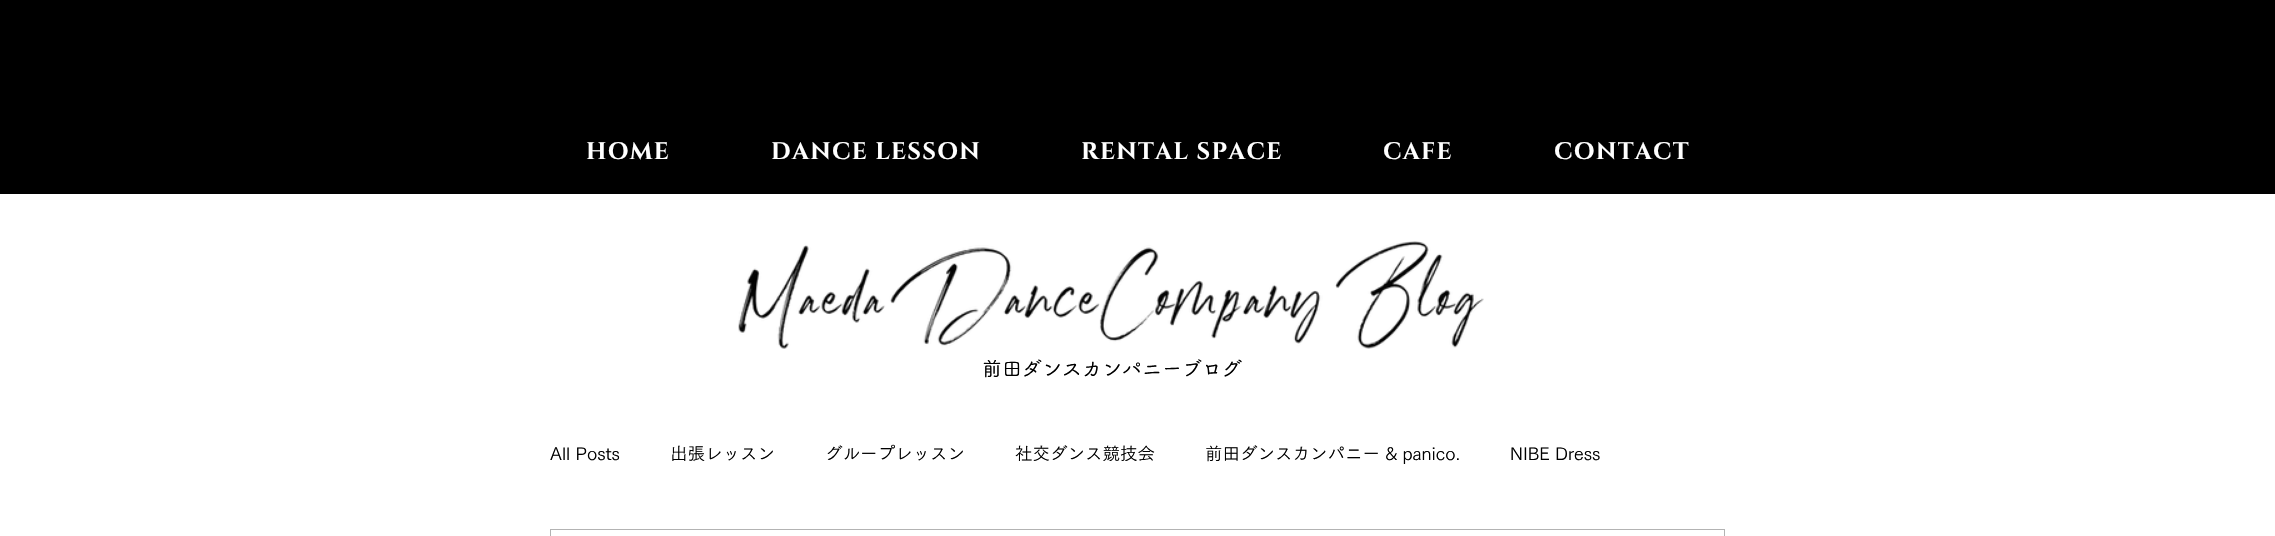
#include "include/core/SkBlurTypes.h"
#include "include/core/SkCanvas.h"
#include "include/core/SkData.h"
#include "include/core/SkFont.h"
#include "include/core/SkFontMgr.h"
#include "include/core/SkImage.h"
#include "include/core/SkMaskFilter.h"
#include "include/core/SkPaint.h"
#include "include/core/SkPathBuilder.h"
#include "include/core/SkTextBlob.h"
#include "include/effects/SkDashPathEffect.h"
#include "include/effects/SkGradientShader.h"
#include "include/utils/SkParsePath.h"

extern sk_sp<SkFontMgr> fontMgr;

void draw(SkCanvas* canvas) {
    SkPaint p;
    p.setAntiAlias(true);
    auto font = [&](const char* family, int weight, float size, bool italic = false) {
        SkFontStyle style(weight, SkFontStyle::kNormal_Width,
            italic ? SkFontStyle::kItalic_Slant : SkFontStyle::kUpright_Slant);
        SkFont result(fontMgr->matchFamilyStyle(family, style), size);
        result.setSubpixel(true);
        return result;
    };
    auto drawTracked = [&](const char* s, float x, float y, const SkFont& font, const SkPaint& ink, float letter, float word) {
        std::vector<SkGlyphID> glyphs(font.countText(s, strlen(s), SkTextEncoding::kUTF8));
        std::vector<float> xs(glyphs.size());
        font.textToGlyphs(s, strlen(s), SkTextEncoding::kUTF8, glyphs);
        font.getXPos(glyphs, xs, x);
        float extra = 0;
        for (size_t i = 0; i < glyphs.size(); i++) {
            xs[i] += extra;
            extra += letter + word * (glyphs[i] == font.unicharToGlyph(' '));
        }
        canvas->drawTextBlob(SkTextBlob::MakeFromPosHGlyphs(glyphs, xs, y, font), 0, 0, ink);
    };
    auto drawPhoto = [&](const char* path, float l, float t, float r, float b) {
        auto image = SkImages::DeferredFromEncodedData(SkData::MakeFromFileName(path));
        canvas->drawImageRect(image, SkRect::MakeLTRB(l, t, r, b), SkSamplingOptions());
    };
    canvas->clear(0xFFFFFFFF);
    p.setColor(0xFF000000);
    canvas->drawRect(SkRect::MakeLTRB(0, 0, 2275, 194), p);
    auto font1 = font("Cinzel", 700, 23.75f);
    p.setColor(0xFFFFFFFF);
    {
        const struct { const char* s; float x, y; } items[] = {
            {"HOME", 586, 159},
            {"DANCE LESSON", 771, 159},
            {"RENTAL SPACE", 1081, 159},
            {"CAFE", 1383, 159},
            {"CONTACT", 1554, 159},
        };
        for (auto [s, x, y] : items) {
            drawTracked(s, x, y, font1, p, 1.25f, 0);
        }
    }
    drawPhoto("media/1.png", 738, 241, 1484, 349);
    auto font2 = font("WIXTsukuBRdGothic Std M", 500, 20);
    p.setColor(0xFF000000);
    canvas->drawString("前田ダンスカンパニーブログ", 982, 376, font2, p);
    auto font3 = font("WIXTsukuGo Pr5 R", 400, 17.5f);
    {
        const struct { const char* s; float x, y; } items[] = {
            {"All Posts", 550, 460},
            {"出張レッスン", 670, 460},
            {"グループレッスン", 825, 460},
            {"社交ダンス競技会", 1015, 460},
            {"前田ダンスカンパニー & panico.", 1205, 460},
            {"NIBE Dress", 1510, 460},
        };
        for (auto [s, x, y] : items) {
            canvas->drawString(s, x, y, font3, p);
        }
    }
    p.setStyle(SkPaint::kStroke_Style);
    p.setStrokeWidth(1);
    p.setColor(0xFFB3B3B3);
    canvas->drawRect(SkRect::MakeLTRB(550.5f, 529.5f, 1724.5f, 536.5f), p);
}
